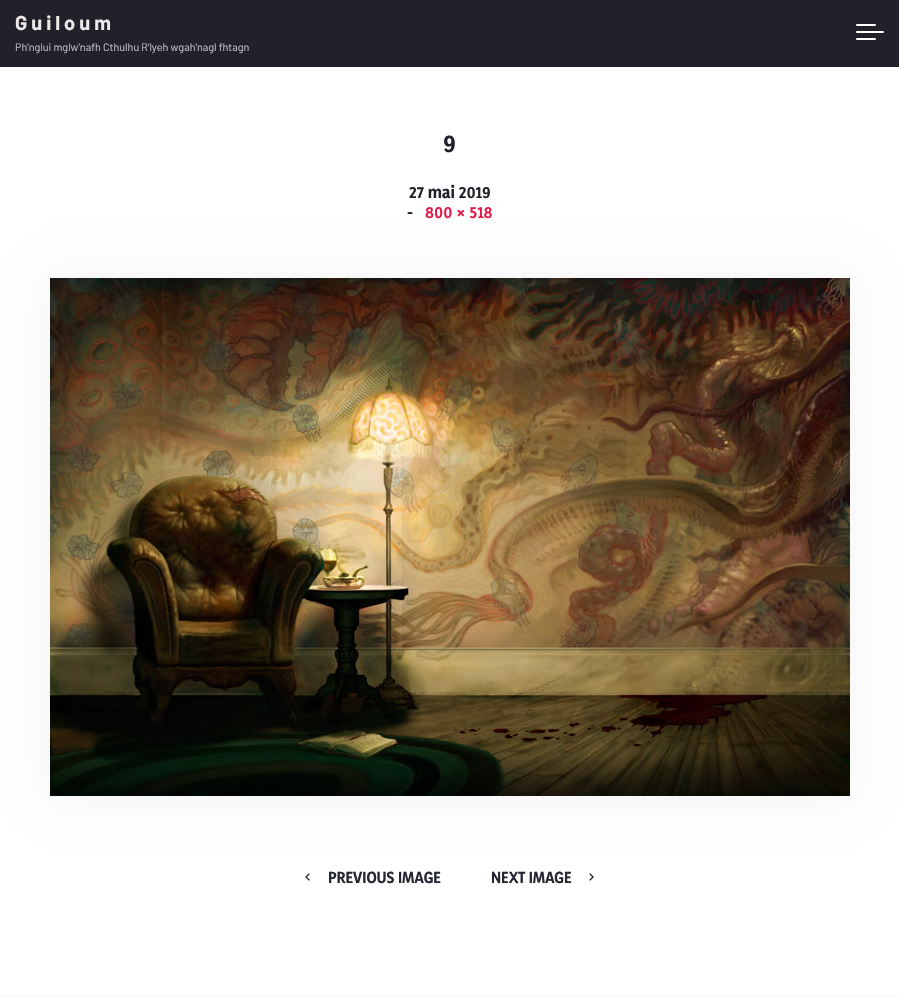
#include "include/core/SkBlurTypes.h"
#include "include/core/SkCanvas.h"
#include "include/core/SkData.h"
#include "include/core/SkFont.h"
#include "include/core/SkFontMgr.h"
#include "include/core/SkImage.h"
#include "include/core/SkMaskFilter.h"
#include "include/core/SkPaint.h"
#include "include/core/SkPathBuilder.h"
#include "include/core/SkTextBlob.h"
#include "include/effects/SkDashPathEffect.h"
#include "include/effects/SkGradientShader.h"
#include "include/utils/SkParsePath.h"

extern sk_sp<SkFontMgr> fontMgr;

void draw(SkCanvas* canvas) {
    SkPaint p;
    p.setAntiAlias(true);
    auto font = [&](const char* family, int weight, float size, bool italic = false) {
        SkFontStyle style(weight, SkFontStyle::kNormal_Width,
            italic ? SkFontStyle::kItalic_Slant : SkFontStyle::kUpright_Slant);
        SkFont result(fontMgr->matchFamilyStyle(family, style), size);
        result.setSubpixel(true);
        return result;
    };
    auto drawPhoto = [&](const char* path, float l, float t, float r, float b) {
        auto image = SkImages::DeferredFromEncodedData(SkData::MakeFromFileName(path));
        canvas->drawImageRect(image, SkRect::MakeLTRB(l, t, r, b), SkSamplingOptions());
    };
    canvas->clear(0xFFFFFFFF);
    p.setColor(0xFF22212A);
    canvas->drawRect(SkRect::MakeLTRB(0, 0, 899, 67), p);
    auto font1 = font("Barlow", 700, 20);
    p.setColor(0xFFECE8E8);
    canvas->drawString("G u i l o u m", 15, 30, font1, p);
    auto font2 = font("Barlow", 400, 10.8f);
    p.setColor(0xFFBFC0C4);
    canvas->drawString("Ph'nglui mglw'nafh Cthulhu R'lyeh wgah'nagl fhtagn", 15, 51, font2, p);
    p.setColor(0xFFFFFFFF);
    canvas->drawRoundRect(SkRect::MakeLTRB(856, 31, 884, 33), 1, 1, p);
    canvas->drawRoundRect(SkRect::MakeLTRB(856, 24, 876, 26), 1, 1, p);
    canvas->drawRoundRect(SkRect::MakeLTRB(856, 38, 876, 40), 1, 1, p);
    auto font3 = font("Yaldevi", 700, 24);
    p.setColor(0xFF211F2A);
    canvas->drawString("9", 443, 152, font3, p);
    auto font4 = font("Yaldevi", 700, 16);
    canvas->drawString("27 mai 2019", 409, 198, font4, p);
    canvas->drawString("-", 407, 218, font4, p);
    p.setColor(0xFFDF204D);
    canvas->drawString("800 × 518", 425, 218, font4, p);
    p.setColor(0x0D000000);
    p.setMaskFilter(SkMaskFilter::MakeBlur(kNormal_SkBlurStyle, 20));
    canvas->drawRect(SkRect::MakeLTRB(50, 278, 850, 796), p);
    p.setMaskFilter(nullptr);
    drawPhoto("media/1.png", 50, 278, 850, 796);
    drawPhoto("media/2.png", 305, 873, 310, 881);
    auto font5 = font("Yaldevi", 700, 14.5f);
    p.setColor(0xFF242731);
    canvas->drawString("PREVIOUS IMAGE", 328, 883, font5, p);
    canvas->drawString("NEXT IMAGE", 491, 883, font5, p);
    drawPhoto("media/3.png", 589, 873, 594, 881);
    p.setColor(0xFFF7F7F7);
    canvas->drawRect(SkRect::MakeLTRB(0, 996, 899, 997), p);
}
